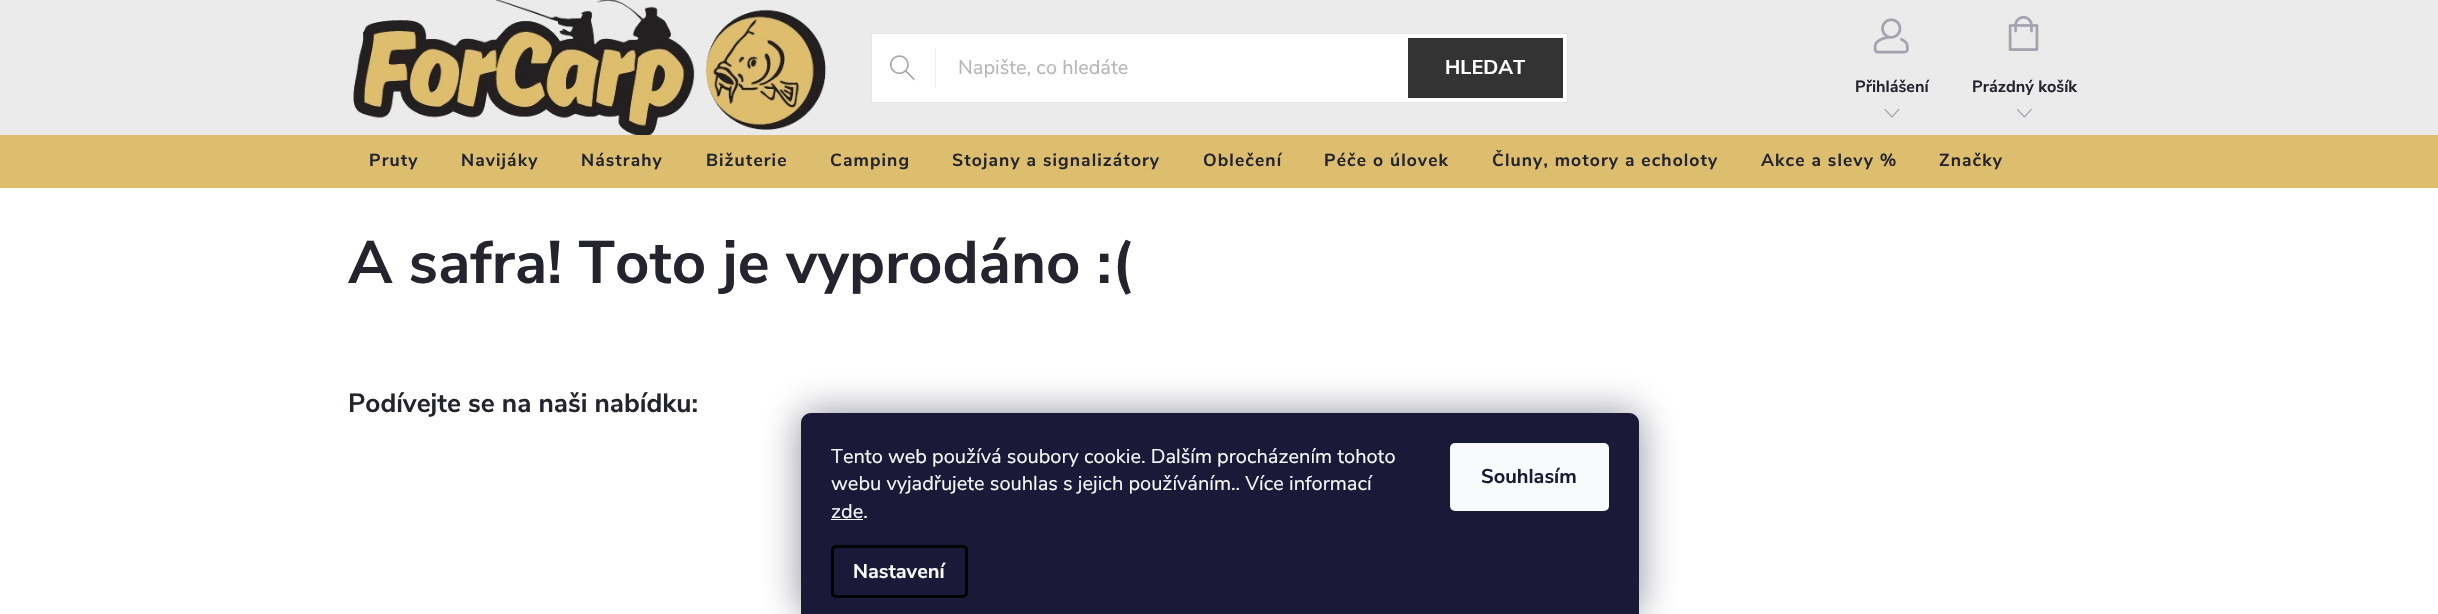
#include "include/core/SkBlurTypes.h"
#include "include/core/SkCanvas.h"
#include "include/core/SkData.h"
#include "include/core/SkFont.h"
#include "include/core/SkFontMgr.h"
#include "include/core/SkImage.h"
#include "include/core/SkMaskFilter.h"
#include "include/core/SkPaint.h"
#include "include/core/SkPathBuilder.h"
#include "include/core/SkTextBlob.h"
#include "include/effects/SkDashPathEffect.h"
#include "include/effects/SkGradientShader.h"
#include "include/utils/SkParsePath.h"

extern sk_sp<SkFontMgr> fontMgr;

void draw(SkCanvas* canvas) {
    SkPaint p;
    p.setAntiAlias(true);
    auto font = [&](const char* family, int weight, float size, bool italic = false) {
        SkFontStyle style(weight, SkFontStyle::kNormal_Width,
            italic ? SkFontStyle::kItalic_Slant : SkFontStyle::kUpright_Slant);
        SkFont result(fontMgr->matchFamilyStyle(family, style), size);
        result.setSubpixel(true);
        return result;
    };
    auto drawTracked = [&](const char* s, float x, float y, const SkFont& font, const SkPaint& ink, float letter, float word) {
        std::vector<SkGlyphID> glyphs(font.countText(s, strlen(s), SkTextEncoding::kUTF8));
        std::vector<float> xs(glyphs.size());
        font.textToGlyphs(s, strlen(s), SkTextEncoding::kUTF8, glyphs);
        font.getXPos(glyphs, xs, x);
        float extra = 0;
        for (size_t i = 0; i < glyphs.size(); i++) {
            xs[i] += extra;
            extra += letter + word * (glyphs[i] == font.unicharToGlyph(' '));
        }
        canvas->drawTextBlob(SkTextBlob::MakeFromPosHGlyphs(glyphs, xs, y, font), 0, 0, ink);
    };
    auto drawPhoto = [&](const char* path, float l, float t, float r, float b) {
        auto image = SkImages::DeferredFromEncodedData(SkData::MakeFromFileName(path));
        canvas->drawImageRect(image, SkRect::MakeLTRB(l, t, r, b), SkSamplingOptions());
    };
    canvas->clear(0xFFFFFFFF);
    p.setColor(0xFFDDBE6E);
    canvas->drawRect(SkRect::MakeLTRB(0, 135, 2438, 188), p);
    p.setColor(0xFFEBEBEB);
    canvas->drawRect(SkRect::MakeLTRB(0, 0, 2438, 135), p);
    drawPhoto("media/1.png", 353, 0, 826, 135);
    p.setColor(0xFFFFFFFF);
    canvas->drawRect(SkRect::MakeLTRB(871.5f, 33.5f, 1567.5f, 102.5f), p);
    p.setStyle(SkPaint::kStroke_Style);
    p.setStrokeWidth(1);
    p.setColor(0xFFE4E4E4);
    canvas->drawRect(SkRect::MakeLTRB(871.5f, 33.5f, 1567.5f, 102.5f), p);
    p.setStyle(SkPaint::kFill_Style);
    p.setColor(0xFFF1F1F1);
    canvas->drawRect(SkRect::MakeLTRB(935, 48, 936, 88), p);
    drawPhoto("media/2.png", 890, 55, 915, 81);
    auto font1 = font("Nunito Sans", 400, 20);
    p.setColor(0xFFB6B6B6);
    canvas->drawString("Napište, co hledáte", 958, 74, font1, p);
    p.setColor(0xFF333333);
    canvas->drawRect(SkRect::MakeLTRB(1408, 38, 1563, 98), p);
    auto font2 = font("Nunito Sans", 700, 20);
    p.setColor(0xFFFFFFFF);
    canvas->drawString("HLEDAT", 1445, 74, font2, p);
    drawPhoto("media/3.png", 1873, 18, 1909, 54);
    auto font3 = font("Nunito Sans", 700, 16.25f);
    p.setColor(0xFF24242E);
    canvas->drawString("Přihlášení", 1855, 92, font3, p);
    drawPhoto("media/4.png", 1884, 108, 1900, 118);
    drawPhoto("media/5.png", 2008, 16, 2039, 51);
    canvas->drawString("Prázdný košík", 1972, 92, font3, p);
    drawPhoto("media/6.png", 2017, 108, 2032, 118);
    auto font4 = font("Nunito Sans", 700, 17.5f);
    {
        const struct { const char* s; float x, y; } items[] = {
            {"Pruty", 369, 166},
            {"Navijáky", 461, 166},
            {"Nástrahy", 581, 166},
            {"Bižuterie", 706, 166},
            {"Camping", 830, 166},
            {"Stojany a signalizátory", 952, 166},
            {"Oblečení", 1203, 166},
            {"Péče o úlovek", 1324, 166},
            {"Čluny, motory a echoloty", 1492, 166},
            {"Akce a slevy %", 1761, 166},
            {"Značky", 1939, 166},
        };
        for (auto [s, x, y] : items) {
            drawTracked(s, x, y, font4, p, 1.1f, 0);
        }
    }
    auto font5 = font("Nunito Sans", 700, 60);
    canvas->drawString("A safra! Toto je vyprodáno :(", 348, 283, font5, p);
    auto font6 = font("Nunito Sans", 700, 26.25f);
    canvas->drawString("Podívejte se na naši nabídku:", 348, 412, font6, p);
    p.setColor(0x801B1939);
    p.setMaskFilter(SkMaskFilter::MakeBlur(kNormal_SkBlurStyle, 19));
    canvas->drawRoundRect(SkRect::MakeLTRB(801, 413, 1639, 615), 10, 10, p);
    p.setMaskFilter(nullptr);
    p.setColor(0xFF1A1937);
    canvas->drawPath(SkPathBuilder().moveTo(811, 413).lineTo(1629, 413).cubicTo(1634.5f, 413, 1639, 417.5f, 1639, 423).lineTo(1639, 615).lineTo(801, 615).lineTo(801, 423).cubicTo(801, 417.5f, 805.5f, 413, 811, 413).close().detach(), p);
    p.setColor(0xFFF8FAFB);
    {
        const struct { const char* s; float x, y; } items[] = {
            {"Tento web používá soubory cookie. Dalším procházením tohoto", 831, 463},
            {"webu vyjadřujete souhlas s jejich používáním.. Více informací", 831, 490},
            {"zde.", 831, 518},
        };
        for (auto [s, x, y] : items) {
            canvas->drawString(s, x, y, font1, p);
        }
    }
    canvas->drawRect(SkRect::MakeLTRB(831, 519, 863, 520), p);
    p.setStyle(SkPaint::kStroke_Style);
    p.setStrokeWidth(3);
    p.setColor(0xFF000000);
    canvas->drawRoundRect(SkRect::MakeLTRB(832.5f, 546.5f, 966.5f, 596.5f), 3.5f, 3.5f, p);
    p.setStyle(SkPaint::kFill_Style);
    p.setColor(0xFFF8FAFB);
    canvas->drawString("Nastavení", 853, 578, font2, p);
    canvas->drawRoundRect(SkRect::MakeLTRB(1450, 443, 1609, 511), 5, 5, p);
    p.setColor(0xFF1A1937);
    canvas->drawString("Souhlasím", 1481, 483, font2, p);
}
